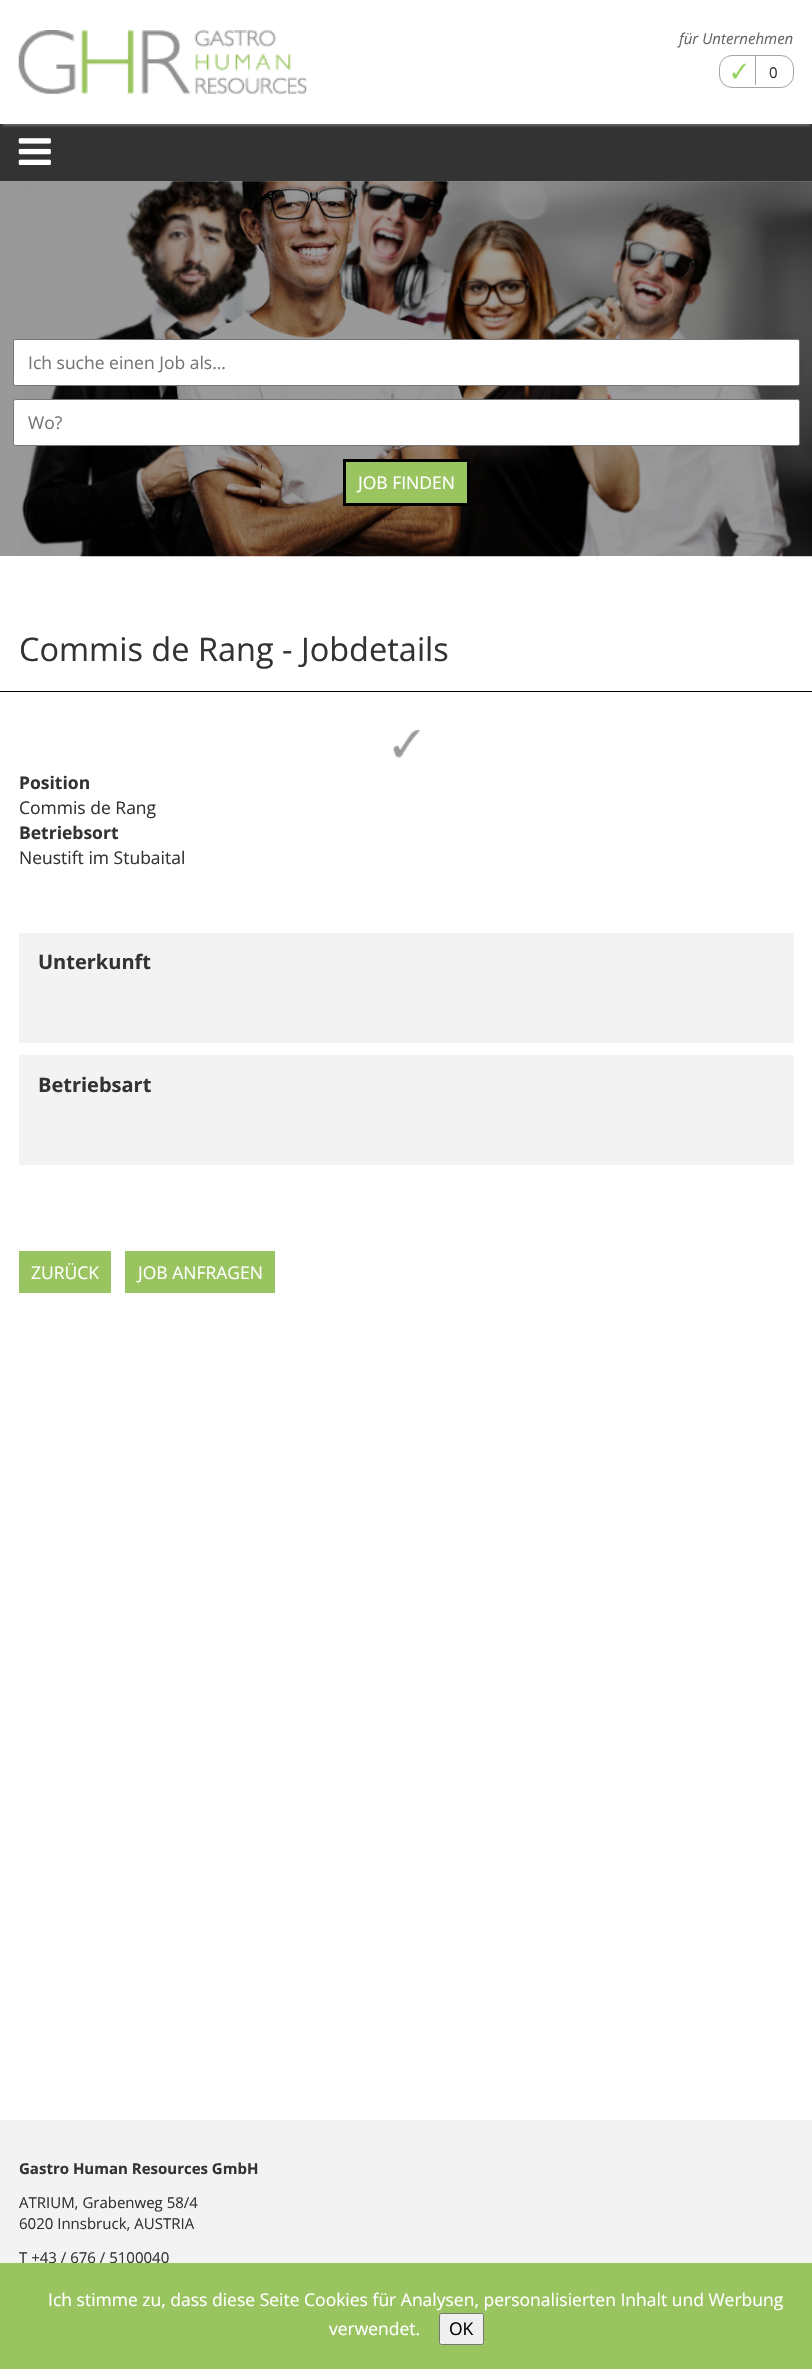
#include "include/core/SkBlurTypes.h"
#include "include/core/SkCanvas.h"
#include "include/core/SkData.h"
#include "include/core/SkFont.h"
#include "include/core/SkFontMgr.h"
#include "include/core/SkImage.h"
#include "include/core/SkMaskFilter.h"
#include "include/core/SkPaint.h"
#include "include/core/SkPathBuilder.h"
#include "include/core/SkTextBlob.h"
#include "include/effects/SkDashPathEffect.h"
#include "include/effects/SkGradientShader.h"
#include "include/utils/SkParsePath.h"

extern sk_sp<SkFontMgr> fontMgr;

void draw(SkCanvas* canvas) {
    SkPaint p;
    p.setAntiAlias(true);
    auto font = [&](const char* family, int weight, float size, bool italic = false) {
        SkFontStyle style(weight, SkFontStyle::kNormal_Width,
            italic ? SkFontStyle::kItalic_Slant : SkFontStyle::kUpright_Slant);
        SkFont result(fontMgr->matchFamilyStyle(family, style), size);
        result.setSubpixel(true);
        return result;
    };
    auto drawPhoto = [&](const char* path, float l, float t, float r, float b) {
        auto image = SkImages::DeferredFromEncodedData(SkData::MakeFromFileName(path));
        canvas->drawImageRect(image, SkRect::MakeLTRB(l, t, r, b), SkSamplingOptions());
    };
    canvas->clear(0xFFFFFFFF);
    p.setColor(0xFF999999);
    canvas->drawRect(SkRect::MakeLTRB(0, 181, 812, 556), p);
    p.setColor(0xFF333333);
    canvas->drawRect(SkRect::MakeLTRB(0, 124, 812, 181), p);
    canvas->save();
    canvas->clipPath(SkPathBuilder(SkPathFillType::kEvenOdd).moveTo(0, 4).lineTo(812, 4).lineTo(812, 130).lineTo(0, 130).close().moveTo(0, 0).lineTo(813, 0).lineTo(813, 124).lineTo(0, 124).close().detach(), true);
    p.setColor(0xFF666666);
    p.setMaskFilter(SkMaskFilter::MakeBlur(kNormal_SkBlurStyle, 1));
    canvas->drawRect(SkRect::MakeLTRB(3, 8, 810, 126), p);
    p.setMaskFilter(nullptr);
    canvas->restore();
    drawPhoto("media/1.png", 18, 30, 307, 94);
    auto font1 = font("Open Sans", 400, 15, true);
    canvas->drawString("für Unternehmen", 679, 44, font1, p);
    p.setStyle(SkPaint::kStroke_Style);
    p.setStrokeWidth(1);
    p.setColor(0xFFA3A3A3);
    canvas->drawRoundRect(SkRect::MakeLTRB(719.5f, 55.5f, 793.5f, 87.5f), 12.5f, 12.5f, p);
    p.setStyle(SkPaint::kFill_Style);
    canvas->drawRect(SkRect::MakeLTRB(755, 56, 756, 85), p);
    drawPhoto("media/2.png", 732, 63, 747, 79);
    auto font2 = font("Open Sans", 400, 15);
    p.setColor(0xFF333333);
    canvas->drawString("0", 769, 78, font2, p);
    drawPhoto("media/3.png", 18, 138, 51, 165);
    drawPhoto("media/4.png", 21, 181, 812, 557);
    p.setColor(0xFFFFFFFF);
    canvas->drawRoundRect(SkRect::MakeLTRB(13.5f, 339.5f, 799.5f, 385.5f), 2, 2, p);
    p.setStyle(SkPaint::kStroke_Style);
    p.setColor(0xFF767676);
    canvas->drawRoundRect(SkRect::MakeLTRB(13.5f, 339.5f, 799.5f, 385.5f), 2, 2, p);
    auto font3 = font("Open Sans", 400, 17.5f);
    p.setStyle(SkPaint::kFill_Style);
    p.setColor(0xFF757575);
    canvas->drawString("Ich suche einen Job als...", 28, 369, font3, p);
    p.setColor(0xFFFFFFFF);
    canvas->drawRoundRect(SkRect::MakeLTRB(13.5f, 399.5f, 799.5f, 445.5f), 2, 2, p);
    p.setStyle(SkPaint::kStroke_Style);
    p.setColor(0xFF767676);
    canvas->drawRoundRect(SkRect::MakeLTRB(13.5f, 399.5f, 799.5f, 445.5f), 2, 2, p);
    p.setStyle(SkPaint::kFill_Style);
    p.setColor(0xFF757575);
    canvas->drawString("Wo?", 28, 429, font3, p);
    p.setColor(0xFF9AC460);
    canvas->drawRect(SkRect::MakeLTRB(344.5f, 460.5f, 468.5f, 504.5f), p);
    p.setStyle(SkPaint::kStroke_Style);
    p.setStrokeWidth(3);
    p.setColor(0xFF000000);
    canvas->drawRect(SkRect::MakeLTRB(344.5f, 460.5f, 468.5f, 504.5f), p);
    p.setStyle(SkPaint::kFill_Style);
    p.setColor(0xFFFFFFFF);
    canvas->drawString("JOB FINDEN", 358, 489, font3, p);
    auto font4 = font("Open Sans", 400, 32.5f);
    p.setColor(0xFF333333);
    canvas->drawString("Commis de Rang - Jobdetails", 19, 661, font4, p);
    p.setColor(0xFF000000);
    canvas->drawRect(SkRect::MakeLTRB(0, 691, 812, 692), p);
    drawPhoto("media/5.png", 393, 730, 420, 758);
    auto font5 = font("Open Sans", 700, 17.5f);
    p.setColor(0xFF333333);
    canvas->drawString("Position", 19, 789, font5, p);
    canvas->drawString("Commis de Rang", 19, 814, font3, p);
    canvas->drawString("Betriebsort", 19, 839, font5, p);
    canvas->drawString("Neustift im Stubaital", 19, 864, font3, p);
    p.setColor(0xFFF3F3F3);
    canvas->drawRect(SkRect::MakeLTRB(19, 933, 794, 1043), p);
    auto font6 = font("Open Sans", 700, 20);
    p.setColor(0xFF333333);
    canvas->drawString("Unterkunft", 38, 969, font6, p);
    p.setColor(0xFFF3F3F3);
    canvas->drawRect(SkRect::MakeLTRB(19, 1055, 794, 1165), p);
    p.setColor(0xFF333333);
    canvas->drawString("Betriebsart", 38, 1092, font6, p);
    p.setColor(0xFF9AC460);
    canvas->drawRect(SkRect::MakeLTRB(19, 1251, 111, 1293), p);
    p.setColor(0xFFFFFFFF);
    canvas->drawString("ZURÜCK", 31, 1279, font3, p);
    p.setColor(0xFF9AC460);
    canvas->drawRect(SkRect::MakeLTRB(125, 1251, 275, 1293), p);
    p.setColor(0xFFFFFFFF);
    canvas->drawString("JOB ANFRAGEN", 138, 1279, font3, p);
    p.setColor(0xFFF3F3F3);
    canvas->drawRect(SkRect::MakeLTRB(0, 2120, 812, 2263), p);
    auto font7 = font("Open Sans", 700, 15);
    p.setColor(0xFF333333);
    canvas->drawString("Gastro Human Resources GmbH", 19, 2174, font7, p);
    {
        const struct { const char* s; float x, y; } items[] = {
            {"ATRIUM, Grabenweg 58/4", 19, 2208},
            {"6020 Innsbruck, AUSTRIA", 19, 2229},
            {"T +43 / 676 / 5100040", 19, 2263},
        };
        for (auto [s, x, y] : items) {
            canvas->drawString(s, x, y, font2, p);
        }
    }
    p.setColor(0xFF9AC460);
    canvas->drawRect(SkRect::MakeLTRB(0, 2263, 812, 2369), p);
    p.setColor(0xFFFFFFFF);
    canvas->drawString("Ich stimme zu, dass diese Seite Cookies für Analysen, personalisierten Inhalt und Werbung", 48, 2306, font3, p);
    canvas->drawString("verwendet.", 329, 2335, font3, p);
    p.setColor(0xFFEFEFEF);
    canvas->drawRoundRect(SkRect::MakeLTRB(439.5f, 2313.5f, 483.5f, 2344.5f), 2, 2, p);
    p.setStyle(SkPaint::kStroke_Style);
    p.setStrokeWidth(1);
    p.setColor(0xFF767676);
    canvas->drawRoundRect(SkRect::MakeLTRB(439.5f, 2313.5f, 483.5f, 2344.5f), 2, 2, p);
    p.setStyle(SkPaint::kFill_Style);
    p.setColor(0xFF000000);
    canvas->drawString("OK", 449, 2335, font3, p);
}
